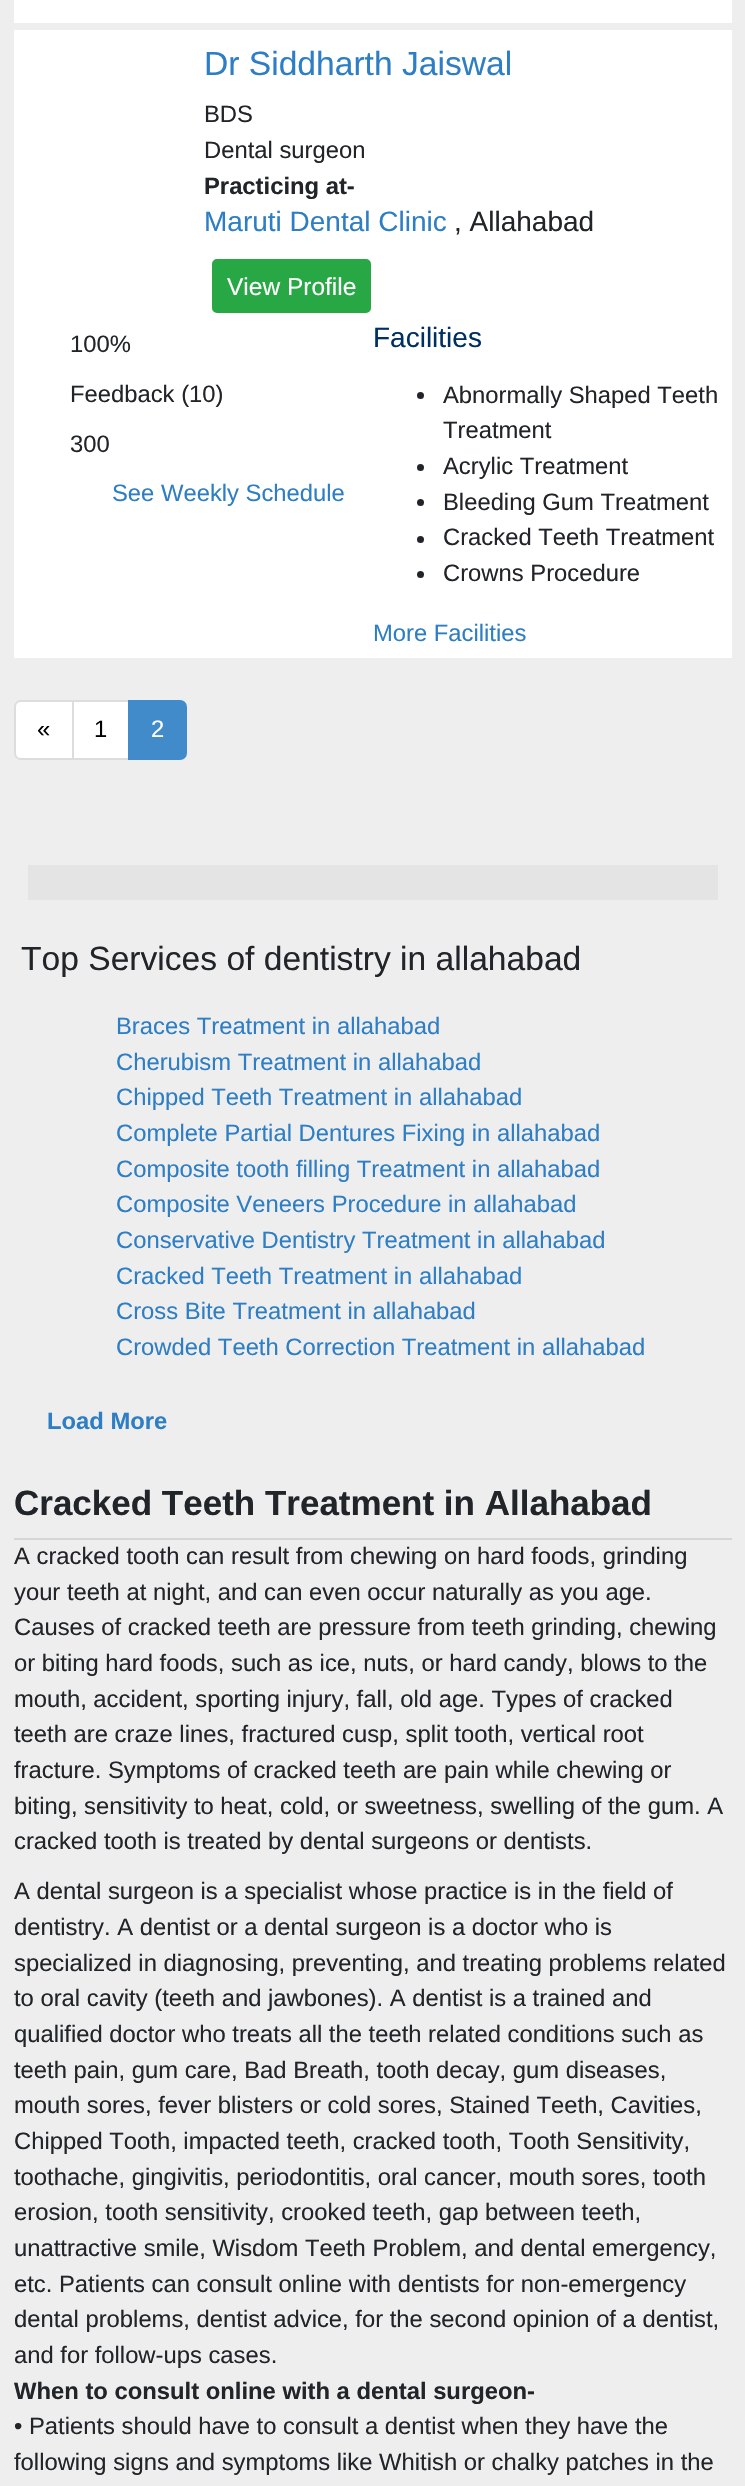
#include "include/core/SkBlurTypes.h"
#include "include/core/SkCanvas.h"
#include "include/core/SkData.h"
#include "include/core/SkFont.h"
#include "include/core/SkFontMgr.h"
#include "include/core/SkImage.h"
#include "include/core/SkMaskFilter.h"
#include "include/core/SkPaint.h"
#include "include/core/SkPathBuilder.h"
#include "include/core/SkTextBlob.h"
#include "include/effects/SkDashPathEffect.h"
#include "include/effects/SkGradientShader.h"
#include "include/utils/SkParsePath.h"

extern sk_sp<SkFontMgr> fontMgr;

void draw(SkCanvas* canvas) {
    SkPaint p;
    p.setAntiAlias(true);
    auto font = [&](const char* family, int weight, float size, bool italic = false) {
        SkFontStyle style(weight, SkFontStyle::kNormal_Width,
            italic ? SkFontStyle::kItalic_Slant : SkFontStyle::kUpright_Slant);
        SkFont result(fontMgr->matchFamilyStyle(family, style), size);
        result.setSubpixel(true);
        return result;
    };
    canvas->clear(0xFFEEEEEE);
    p.setColor(0xFFFFFFFF);
    canvas->drawRect(SkRect::MakeLTRB(14, 0, 732, 23), p);
    canvas->drawRect(SkRect::MakeLTRB(14, 30, 732, 658), p);
    auto font1 = font("Liberation Sans", 400, 33.6f);
    p.setColor(0xFF2D7EC4);
    canvas->drawString("Dr Siddharth Jaiswal", 204, 75, font1, p);
    auto font2 = font("Liberation Sans", 400, 23.8f);
    p.setColor(0xFF212529);
    canvas->drawString("BDS", 204, 122, font2, p);
    canvas->drawString("Dental surgeon", 204, 158, font2, p);
    auto font3 = font("Liberation Sans", 700, 23.8f);
    canvas->drawString("Practicing at-", 204, 194, font3, p);
    auto font4 = font("Liberation Sans", 400, 28);
    p.setColor(0xFF2D7EC4);
    canvas->drawString("Maruti Dental Clinic", 204, 231, font4, p);
    p.setColor(0xFF212529);
    canvas->drawString(", Allahabad", 454, 231, font4, p);
    p.setColor(0xFF28A745);
    canvas->drawRoundRect(SkRect::MakeLTRB(213, 260, 370, 312), 4, 4, p);
    p.setStyle(SkPaint::kStroke_Style);
    p.setStrokeWidth(2);
    canvas->drawRoundRect(SkRect::MakeLTRB(213, 260, 370, 312), 4, 4, p);
    auto font5 = font("Liberation Sans", 400, 24.5f);
    p.setStyle(SkPaint::kFill_Style);
    p.setColor(0xFFFFFFFF);
    canvas->drawString("View Profile", 227, 295, font5, p);
    p.setColor(0xFF212529);
    {
        const struct { const char* s; float x, y; } items[] = {
            {"100%", 70, 352},
            {"Feedback (10)", 70, 402},
            {"300", 70, 452},
        };
        for (auto [s, x, y] : items) {
            canvas->drawString(s, x, y, font2, p);
        }
    }
    p.setColor(0xFF2D7EC4);
    canvas->drawString("See Weekly Schedule", 112, 501, font2, p);
    p.setColor(0xFF002F62);
    canvas->drawString("Facilities", 373, 347, font4, p);
    p.setColor(0xFF212529);
    canvas->drawCircle(420.5f, 395.5f, 3.5f, p);
    canvas->drawString("Abnormally Shaped Teeth", 443, 403, font2, p);
    canvas->drawString("Treatment", 443, 438, font2, p);
    canvas->drawCircle(420.5f, 467.5f, 3.5f, p);
    canvas->drawString("Acrylic Treatment", 443, 474, font2, p);
    canvas->drawCircle(420.5f, 502.5f, 3.5f, p);
    canvas->drawString("Bleeding Gum Treatment", 443, 510, font2, p);
    canvas->drawCircle(420.5f, 539.5f, 3.5f, p);
    canvas->drawString("Cracked Teeth Treatment", 443, 545, font2, p);
    canvas->drawCircle(420.5f, 574.5f, 3.5f, p);
    canvas->drawString("Crowns Procedure", 443, 581, font2, p);
    p.setColor(0xFF2D7EC4);
    canvas->drawString("More Facilities", 373, 641, font2, p);
    p.setColor(0xFFFFFFFF);
    canvas->drawPath(SkPathBuilder().moveTo(21, 701).lineTo(73, 701).lineTo(73, 759).lineTo(21, 759).cubicTo(17.5f, 759, 15, 756.5f, 15, 753).lineTo(15, 707).cubicTo(15, 703.5f, 17.5f, 701, 21, 701).close().detach(), p);
    p.setStyle(SkPaint::kStroke_Style);
    p.setColor(0xFFDDDDDD);
    canvas->drawPath(SkPathBuilder().moveTo(21, 701).lineTo(73, 701).lineTo(73, 759).lineTo(21, 759).cubicTo(17.5f, 759, 15, 756.5f, 15, 753).lineTo(15, 707).cubicTo(15, 703.5f, 17.5f, 701, 21, 701).close().detach(), p);
    p.setStyle(SkPaint::kFill_Style);
    p.setColor(0xFF000000);
    canvas->drawString("«", 37, 737, font2, p);
    p.setColor(0xFFFFFFFF);
    canvas->drawRect(SkRect::MakeLTRB(73, 701, 129, 759), p);
    p.setStyle(SkPaint::kStroke_Style);
    p.setColor(0xFFDDDDDD);
    canvas->drawRect(SkRect::MakeLTRB(73, 701, 129, 759), p);
    p.setStyle(SkPaint::kFill_Style);
    p.setColor(0xFF000000);
    canvas->drawString("1", 94, 737, font2, p);
    p.setColor(0xFF428BCA);
    canvas->drawPath(SkPathBuilder().moveTo(129, 701).lineTo(180, 701).cubicTo(183.5f, 701, 186, 703.5f, 186, 707).lineTo(186, 753).cubicTo(186, 756.5f, 183.5f, 759, 180, 759).lineTo(129, 759).close().detach(), p);
    p.setStyle(SkPaint::kStroke_Style);
    canvas->drawPath(SkPathBuilder().moveTo(129, 701).lineTo(180, 701).cubicTo(183.5f, 701, 186, 703.5f, 186, 707).lineTo(186, 753).cubicTo(186, 756.5f, 183.5f, 759, 180, 759).lineTo(129, 759).close().detach(), p);
    p.setStyle(SkPaint::kFill_Style);
    p.setColor(0xFFFFFFFF);
    canvas->drawString("2", 151, 737, font2, p);
    p.setColor(0xFFE4E4E4);
    canvas->drawRect(SkRect::MakeLTRB(28, 865, 718, 900), p);
    p.setColor(0xFF212529);
    canvas->drawString("Top Services of dentistry in allahabad", 21, 970, font1, p);
    p.setColor(0xFF2D7EC4);
    {
        const struct { const char* s; float x, y; } items[] = {
            {"Braces Treatment in allahabad", 116, 1034},
            {"Cherubism Treatment in allahabad", 116, 1070},
            {"Chipped Teeth Treatment in allahabad", 116, 1105},
            {"Complete Partial Dentures Fixing in allahabad", 116, 1141},
            {"Composite tooth filling Treatment in allahabad", 116, 1177},
            {"Composite Veneers Procedure in allahabad", 116, 1212},
            {"Conservative Dentistry Treatment in allahabad", 116, 1248},
            {"Cracked Teeth Treatment in allahabad", 116, 1284},
            {"Cross Bite Treatment in allahabad", 116, 1319},
            {"Crowded Teeth Correction Treatment in allahabad", 116, 1355},
        };
        for (auto [s, x, y] : items) {
            canvas->drawString(s, x, y, font2, p);
        }
    }
    canvas->drawString("Load More", 47, 1429, font3, p);
    auto font6 = font("Liberation Sans", 700, 35);
    p.setColor(0xFF212529);
    canvas->drawString("Cracked Teeth Treatment in Allahabad", 14, 1515, font6, p);
    p.setColor(0xFFD6D6D6);
    canvas->drawRect(SkRect::MakeLTRB(14, 1538, 732, 1540), p);
    p.setColor(0xFF212529);
    {
        const struct { const char* s; float x, y; } items[] = {
            {"A cracked tooth can result from chewing on hard foods, grinding", 14, 1564},
            {"your teeth at night, and can even occur naturally as you age.", 14, 1600},
            {"Causes of cracked teeth are pressure from teeth grinding, chewing", 14, 1635},
            {"or biting hard foods, such as ice, nuts, or hard candy, blows to the", 14, 1671},
            {"mouth, accident, sporting injury, fall, old age. Types of cracked", 14, 1707},
            {"teeth are craze lines, fractured cusp, split tooth, vertical root", 14, 1742},
            {"fracture. Symptoms of cracked teeth are pain while chewing or", 14, 1778},
            {"biting, sensitivity to heat, cold, or sweetness, swelling of the gum. A", 14, 1814},
            {"cracked tooth is treated by dental surgeons or dentists.", 14, 1849},
            {"A dental surgeon is a specialist whose practice is in the field of", 14, 1899},
            {"dentistry. A dentist or a dental surgeon is a doctor who is", 14, 1935},
            {"specialized in diagnosing, preventing, and treating problems related", 14, 1971},
            {"to oral cavity (teeth and jawbones). A dentist is a trained and", 14, 2006},
            {"qualified doctor who treats all the teeth related conditions such as", 14, 2042},
            {"teeth pain, gum care, Bad Breath, tooth decay, gum diseases,", 14, 2078},
            {"mouth sores, fever blisters or cold sores, Stained Teeth, Cavities,", 14, 2113},
            {"Chipped Tooth, impacted teeth, cracked tooth, Tooth Sensitivity,", 14, 2149},
            {"toothache, gingivitis, periodontitis, oral cancer, mouth sores, tooth", 14, 2185},
            {"erosion, tooth sensitivity, crooked teeth, gap between teeth,", 14, 2220},
            {"unattractive smile, Wisdom Teeth Problem, and dental emergency,", 14, 2256},
            {"etc. Patients can consult online with dentists for non-emergency", 14, 2292},
            {"dental problems, dentist advice, for the second opinion of a dentist,", 14, 2327},
            {"and for follow-ups cases.", 14, 2363},
        };
        for (auto [s, x, y] : items) {
            canvas->drawString(s, x, y, font2, p);
        }
    }
    canvas->drawString("When to consult online with a dental surgeon-", 14, 2399, font3, p);
    canvas->drawString("• Patients should have to consult a dentist when they have the", 14, 2434, font2, p);
    canvas->drawString("following signs and symptoms like Whitish or chalky patches in the", 14, 2470, font2, p);
}
